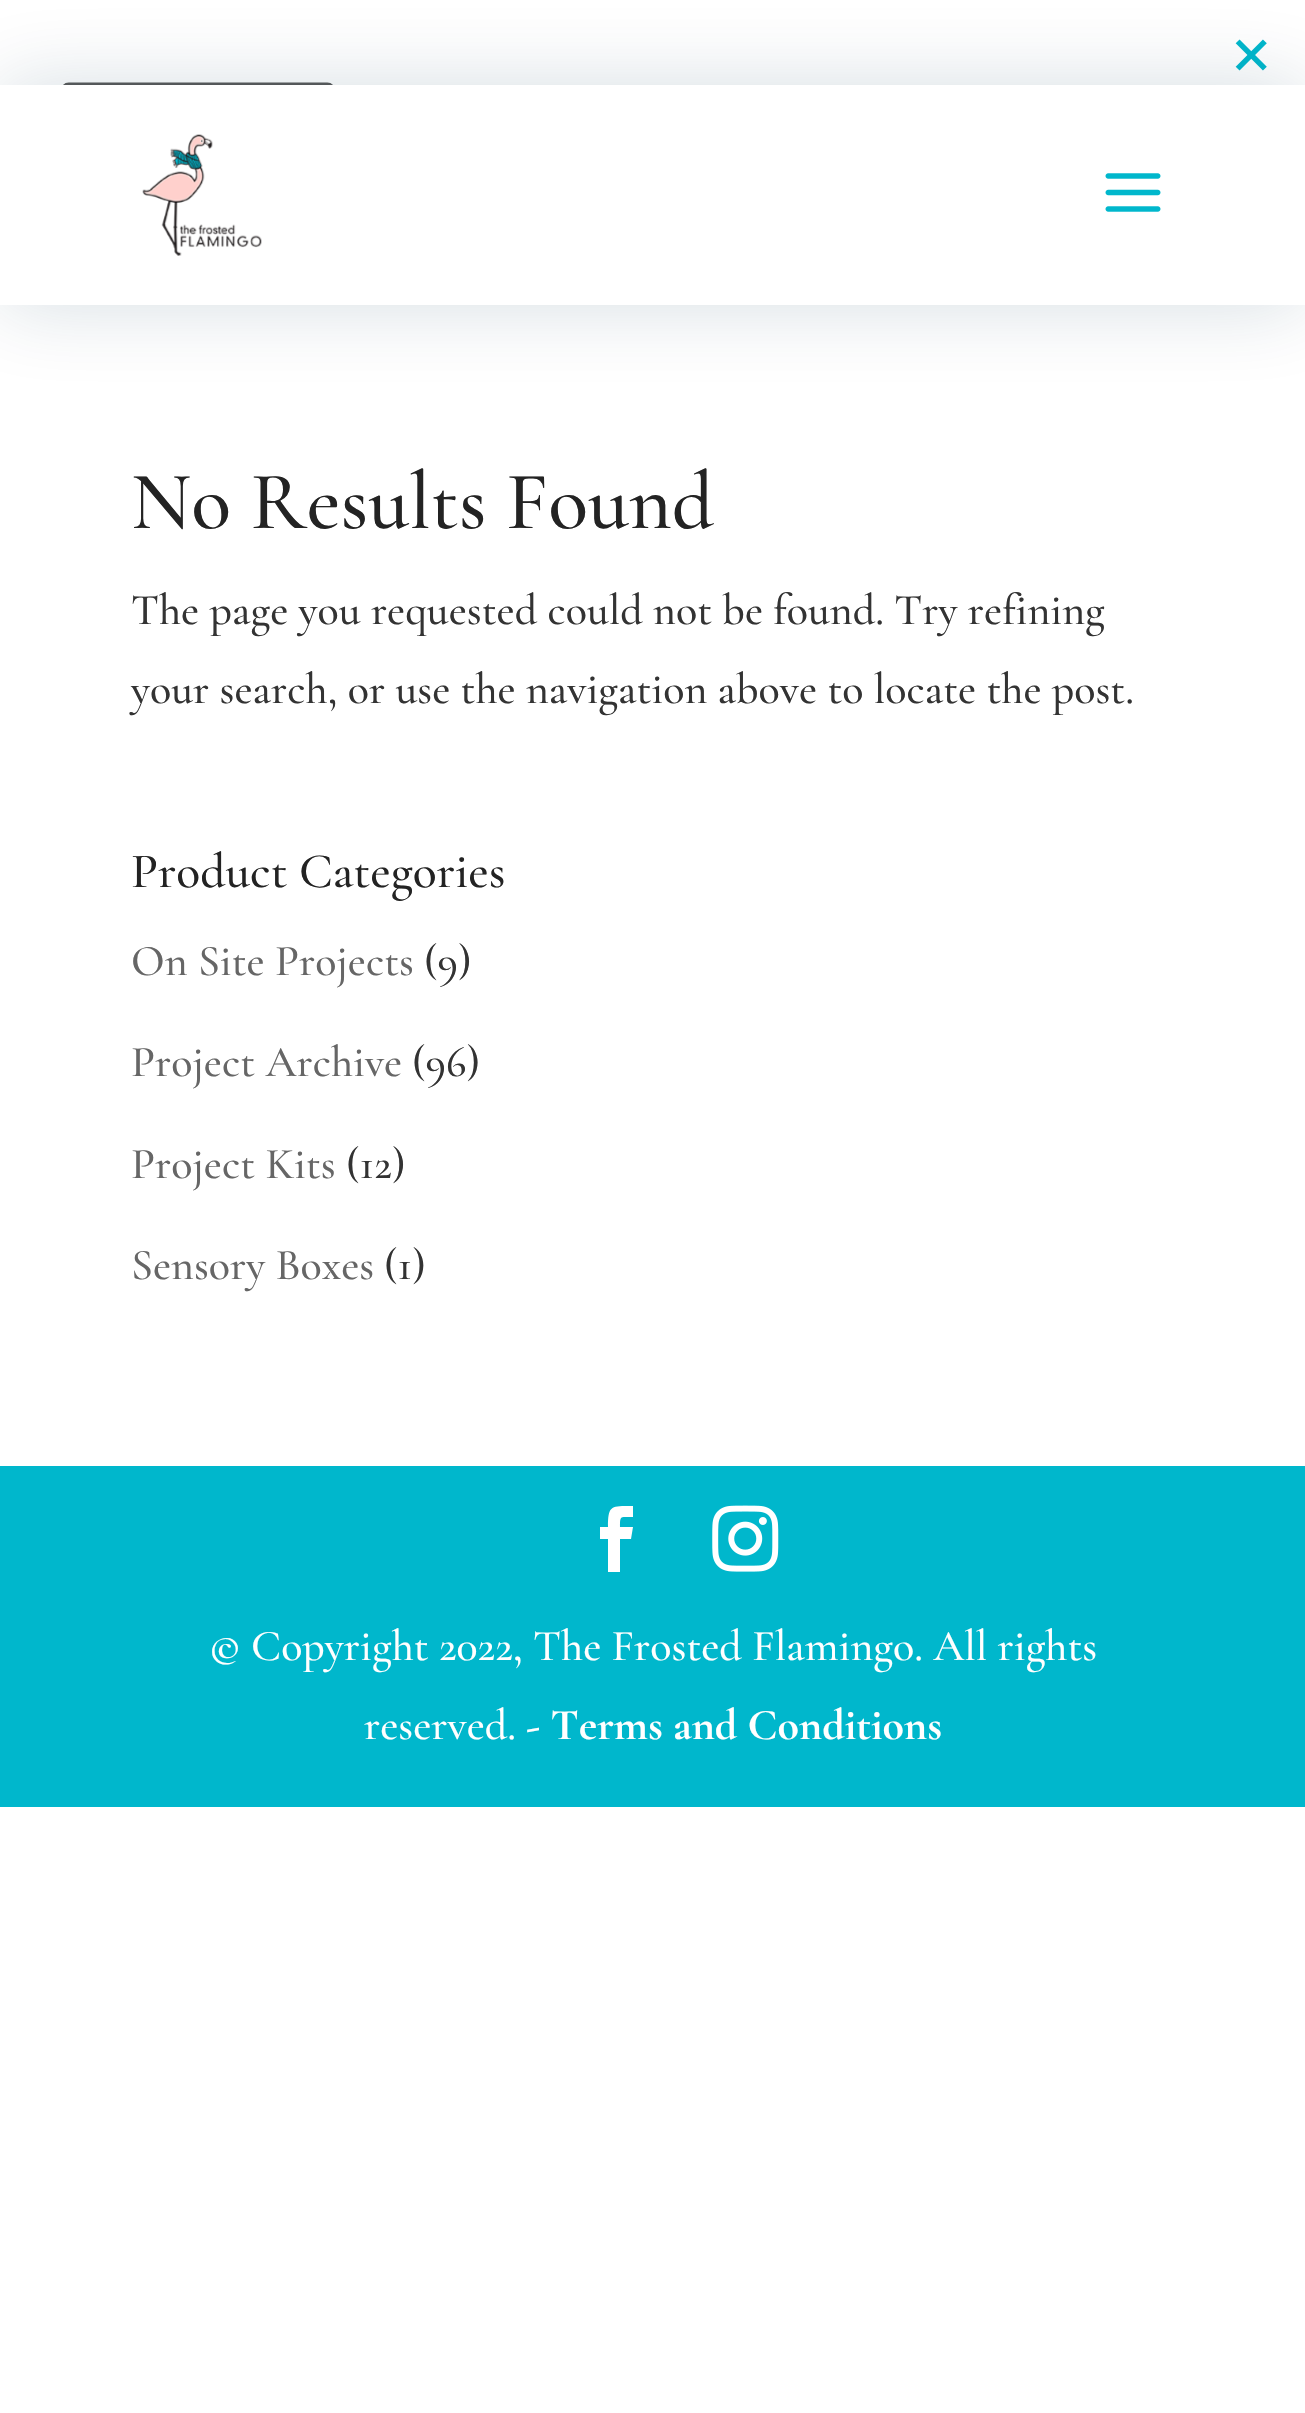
#include "include/core/SkBlurTypes.h"
#include "include/core/SkCanvas.h"
#include "include/core/SkData.h"
#include "include/core/SkFont.h"
#include "include/core/SkFontMgr.h"
#include "include/core/SkImage.h"
#include "include/core/SkMaskFilter.h"
#include "include/core/SkPaint.h"
#include "include/core/SkPathBuilder.h"
#include "include/core/SkTextBlob.h"
#include "include/effects/SkDashPathEffect.h"
#include "include/effects/SkGradientShader.h"
#include "include/utils/SkParsePath.h"

extern sk_sp<SkFontMgr> fontMgr;

void draw(SkCanvas* canvas) {
    SkPaint p;
    p.setAntiAlias(true);
    auto font = [&](const char* family, int weight, float size, bool italic = false) {
        SkFontStyle style(weight, SkFontStyle::kNormal_Width,
            italic ? SkFontStyle::kItalic_Slant : SkFontStyle::kUpright_Slant);
        SkFont result(fontMgr->matchFamilyStyle(family, style), size);
        result.setSubpixel(true);
        return result;
    };
    auto drawPhoto = [&](const char* path, float l, float t, float r, float b) {
        auto image = SkImages::DeferredFromEncodedData(SkData::MakeFromFileName(path));
        canvas->drawImageRect(image, SkRect::MakeLTRB(l, t, r, b), SkSamplingOptions());
    };
    canvas->clear(0xFFFFFFFF);
    drawPhoto("media/1.png", 63, 39, 1267, 85);
    p.setColor(0x2B073354);
    p.setMaskFilter(SkMaskFilter::MakeBlur(kNormal_SkBlurStyle, 41));
    canvas->drawRect(SkRect::MakeLTRB(0, 85, 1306, 305), p);
    p.setMaskFilter(nullptr);
    p.setColor(0xFFFFFFFF);
    canvas->drawRect(SkRect::MakeLTRB(0, 85, 1305, 305), p);
    drawPhoto("media/2.png", 142, 134, 262, 256);
    drawPhoto("media/3.png", 1105, 173, 1161, 212);
    auto font1 = font("Cormorant Garamond", 300, 82.5f);
    p.setColor(0xFF232323);
    canvas->drawString("No Results Found", 131, 528, font1, p);
    auto font2 = font("Cormorant Garamond", 300, 44);
    p.setColor(0xFF333333);
    canvas->drawString("The page you requested could not be found. Try refining", 131, 624, font2, p);
    canvas->drawString("your search, or use the navigation above to locate the post.", 131, 703, font2, p);
    auto font3 = font("Cormorant Garamond", 300, 49.5f);
    p.setColor(0xFF232323);
    canvas->drawString("Product Categories", 131, 887, font3, p);
    p.setColor(0xFF666666);
    canvas->drawString("On Site Projects", 131, 975, font2, p);
    p.setColor(0xFF333333);
    canvas->drawString("(9)", 424, 975, font2, p);
    p.setColor(0xFF666666);
    canvas->drawString("Project Archive", 131, 1076, font2, p);
    p.setColor(0xFF333333);
    canvas->drawString("(96)", 412, 1076, font2, p);
    p.setColor(0xFF666666);
    canvas->drawString("Project Kits", 131, 1178, font2, p);
    p.setColor(0xFF333333);
    canvas->drawString("(12)", 346, 1178, font2, p);
    p.setColor(0xFF666666);
    canvas->drawString("Sensory Boxes", 131, 1279, font2, p);
    p.setColor(0xFF333333);
    canvas->drawString("(1)", 384, 1279, font2, p);
    p.setColor(0xFF00B7CC);
    canvas->drawRect(SkRect::MakeLTRB(0, 1466, 1305, 1807), p);
    p.setColor(0xFFFFFFFF);
    canvas->drawPath(SkPathBuilder().moveTo(608, 1572).lineTo(620, 1572).lineTo(620, 1539).lineTo(631, 1539).lineTo(633, 1527).lineTo(620, 1527).cubicTo(620, 1515, 620, 1517, 633, 1517).lineTo(633, 1506).cubicTo(611, 1506, 608, 1505, 608, 1527).lineTo(600, 1527).lineTo(600, 1539).lineTo(608, 1539).close().detach(), p);
    drawPhoto("media/4.png", 712, 1505, 779, 1572);
    canvas->drawString("© Copyright 2022, The Frosted Flamingo. All rights", 209, 1660, font2, p);
    canvas->drawString("reserved.", 364, 1739, font2, p);
    auto font4 = font("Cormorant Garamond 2", 300, 44);
    canvas->drawString("- Terms and Conditions", 526, 1739, font4, p);
}
